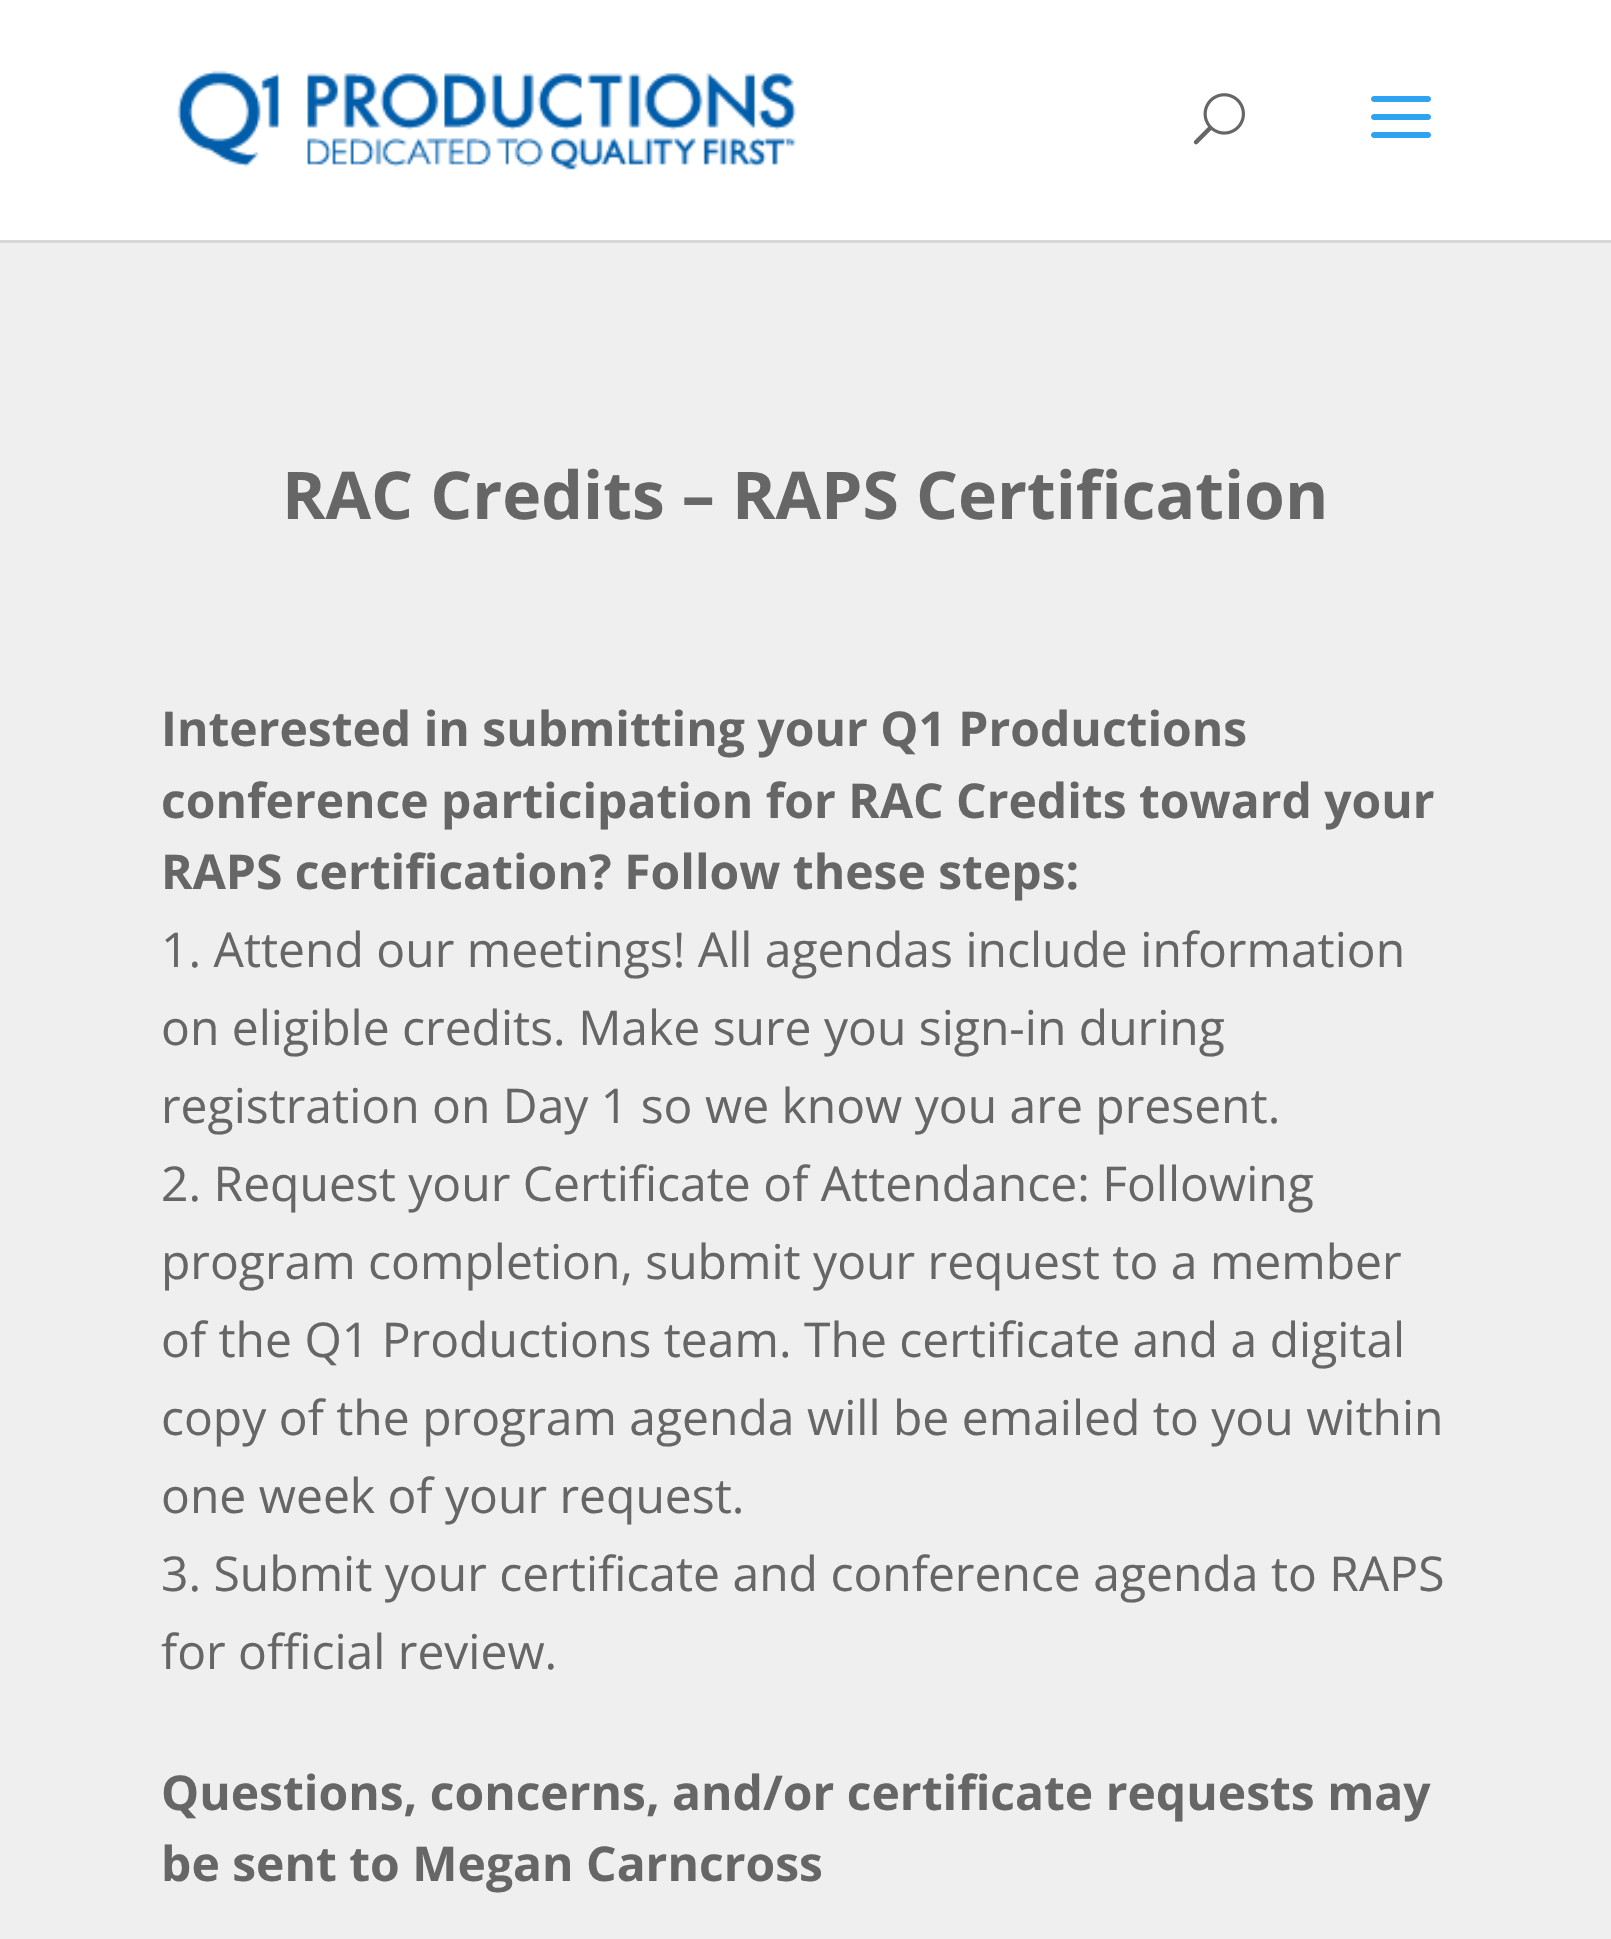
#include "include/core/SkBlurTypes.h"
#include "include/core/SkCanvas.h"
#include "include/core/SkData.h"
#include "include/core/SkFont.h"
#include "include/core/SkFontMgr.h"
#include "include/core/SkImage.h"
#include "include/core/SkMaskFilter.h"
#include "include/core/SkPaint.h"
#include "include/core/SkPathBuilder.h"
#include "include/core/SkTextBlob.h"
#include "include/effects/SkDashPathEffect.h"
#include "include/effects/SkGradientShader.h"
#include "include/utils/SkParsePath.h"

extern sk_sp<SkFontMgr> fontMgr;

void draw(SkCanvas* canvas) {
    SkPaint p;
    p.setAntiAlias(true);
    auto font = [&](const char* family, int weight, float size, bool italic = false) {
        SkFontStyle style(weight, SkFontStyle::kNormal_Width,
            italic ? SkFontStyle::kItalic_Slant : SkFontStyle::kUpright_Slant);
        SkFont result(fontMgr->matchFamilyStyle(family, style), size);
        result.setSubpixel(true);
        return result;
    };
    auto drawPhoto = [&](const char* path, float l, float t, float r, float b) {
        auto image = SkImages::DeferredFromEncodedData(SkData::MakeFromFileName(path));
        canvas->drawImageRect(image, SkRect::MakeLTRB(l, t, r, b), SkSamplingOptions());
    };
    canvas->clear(0xFFEFEFEF);
    p.setColor(0xFFD7D7D7);
    canvas->drawRect(SkRect::MakeLTRB(0, 240, 1611, 243), p);
    p.setColor(0xFFFFFFFF);
    canvas->drawRect(SkRect::MakeLTRB(0, 0, 1611, 240), p);
    drawPhoto("media/1.png", 177, 70, 796, 170);
    drawPhoto("media/2.png", 1193, 93, 1245, 145);
    drawPhoto("media/3.png", 1371, 96, 1431, 138);
    auto font1 = font("Open Sans", 700, 66);
    p.setColor(0xFF666666);
    canvas->drawString("RAC Credits – RAPS Certification", 282, 519, font1, p);
    auto font2 = font("Open Sans", 700, 48);
    {
        const struct { const char* s; float x, y; } items[] = {
            {"Interested in submitting your Q1 Productions", 161, 746},
            {"conference participation for RAC Credits toward your", 161, 818},
            {"RAPS certification? Follow these steps:", 161, 889},
        };
        for (auto [s, x, y] : items) {
            canvas->drawString(s, x, y, font2, p);
        }
    }
    auto font3 = font("Open Sans", 400, 48);
    {
        const struct { const char* s; float x, y; } items[] = {
            {"1. Attend our meetings! All agendas include information", 161, 967},
            {"on eligible credits. Make sure you sign-in during", 161, 1045},
            {"registration on Day 1 so we know you are present.", 161, 1123},
            {"2. Request your Certificate of Attendance: Following", 161, 1201},
            {"program completion, submit your request to a member", 161, 1279},
            {"of the Q1 Productions team. The certificate and a digital", 161, 1357},
            {"copy of the program agenda will be emailed to you within", 161, 1435},
            {"one week of your request.", 161, 1513},
            {"3. Submit your certificate and conference agenda to RAPS", 161, 1591},
            {"for official review.", 161, 1669},
        };
        for (auto [s, x, y] : items) {
            canvas->drawString(s, x, y, font3, p);
        }
    }
    canvas->drawString("Questions, concerns, and/or certificate requests may", 161, 1810, font2, p);
    canvas->drawString("be sent to Megan Carncross", 161, 1881, font2, p);
}
